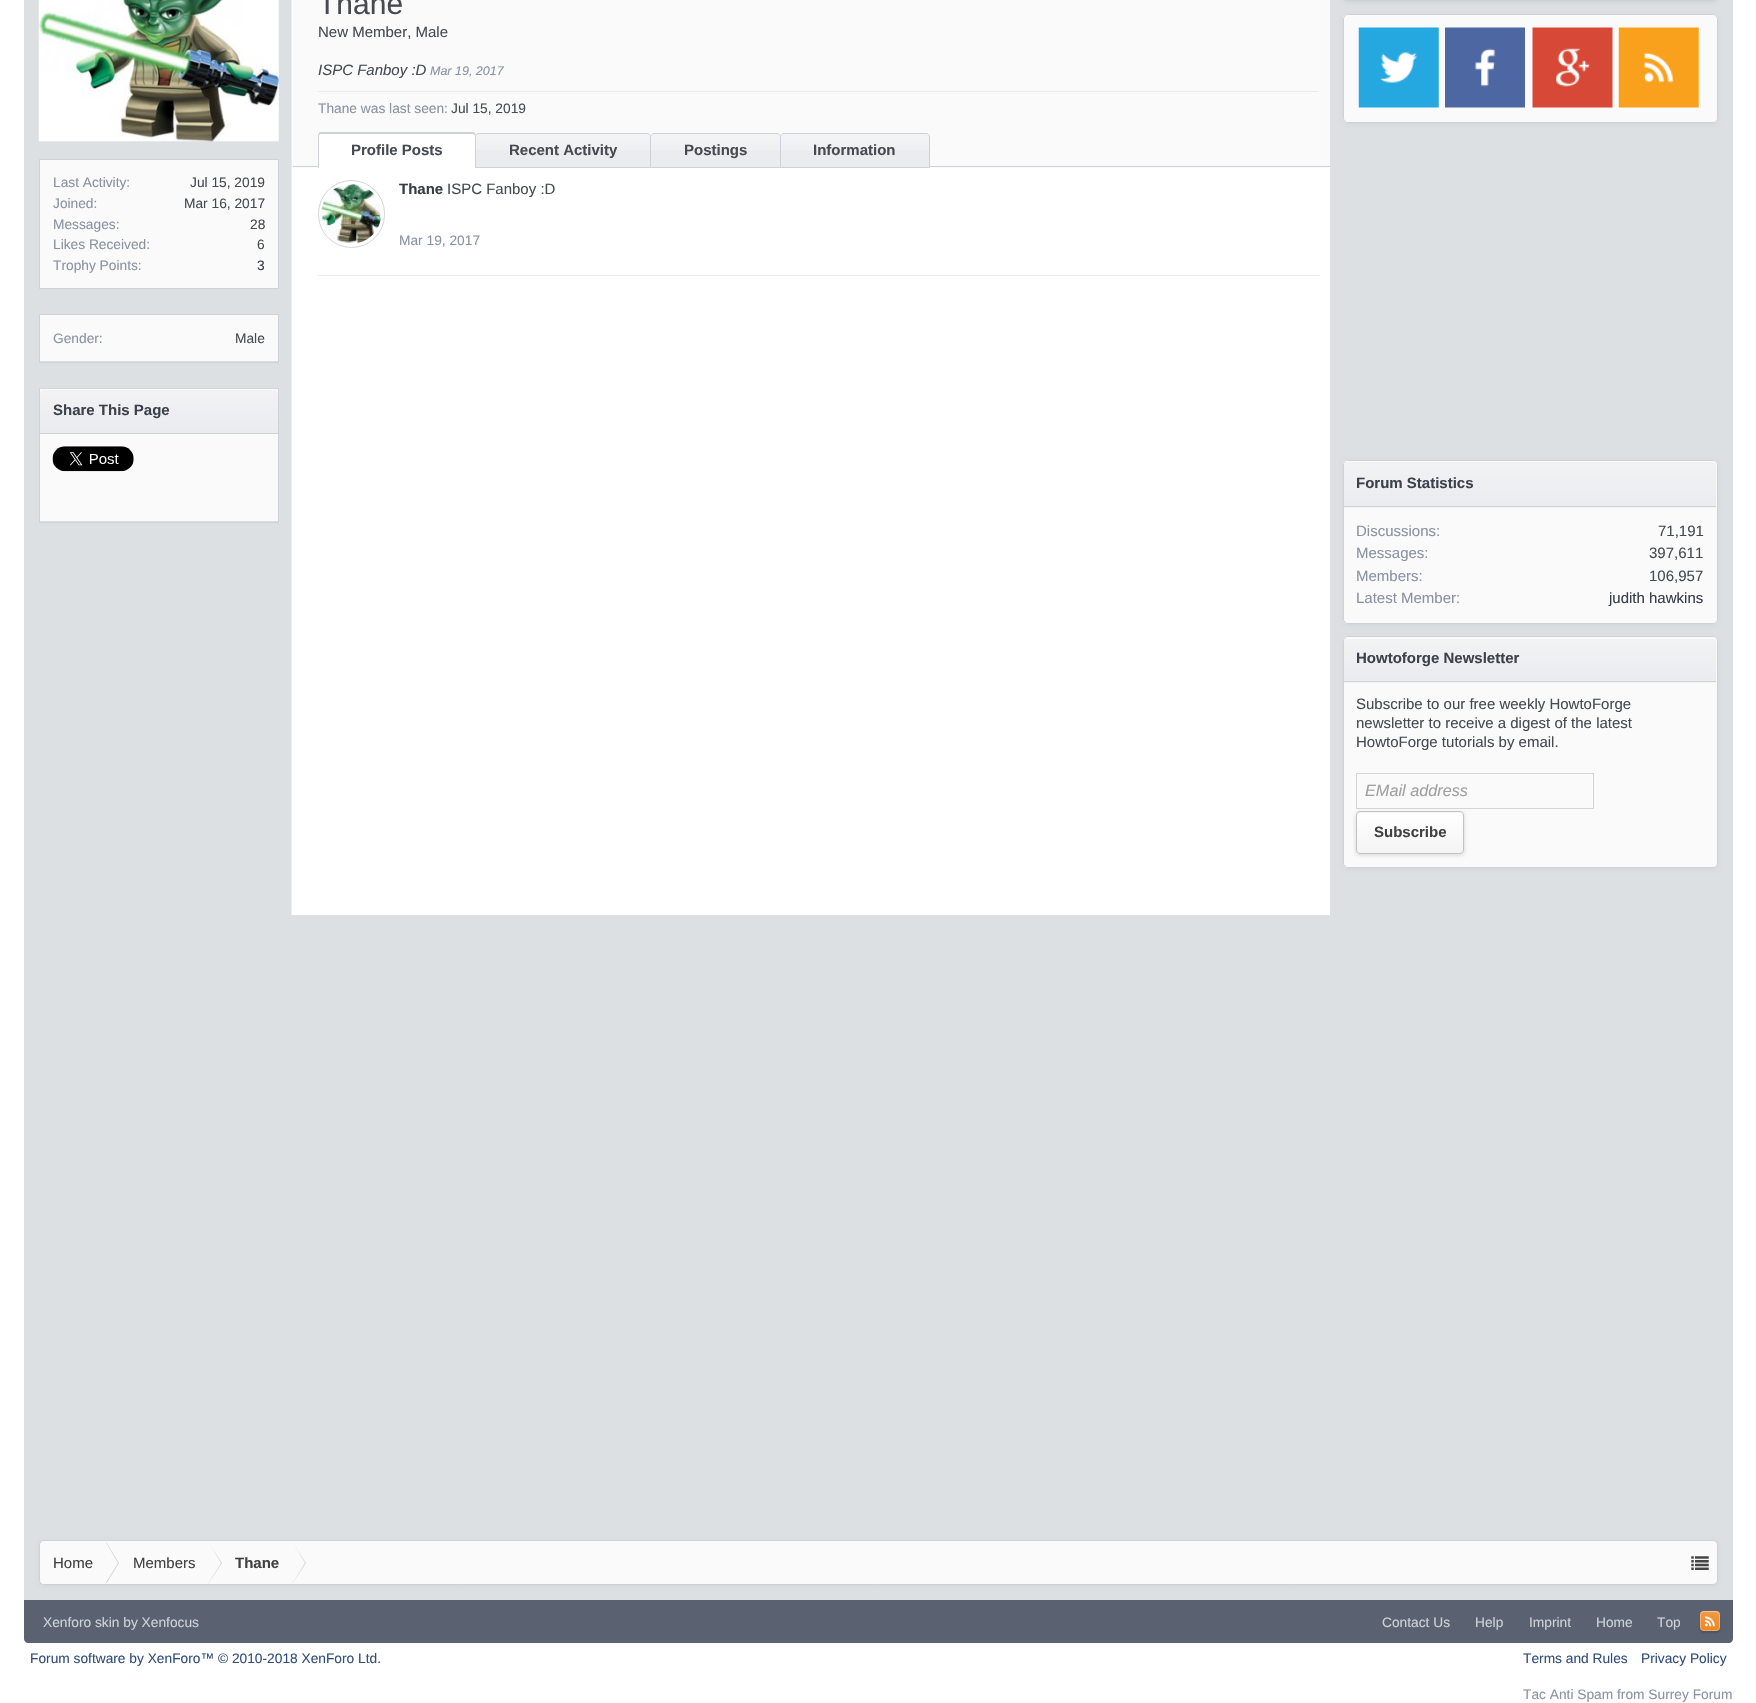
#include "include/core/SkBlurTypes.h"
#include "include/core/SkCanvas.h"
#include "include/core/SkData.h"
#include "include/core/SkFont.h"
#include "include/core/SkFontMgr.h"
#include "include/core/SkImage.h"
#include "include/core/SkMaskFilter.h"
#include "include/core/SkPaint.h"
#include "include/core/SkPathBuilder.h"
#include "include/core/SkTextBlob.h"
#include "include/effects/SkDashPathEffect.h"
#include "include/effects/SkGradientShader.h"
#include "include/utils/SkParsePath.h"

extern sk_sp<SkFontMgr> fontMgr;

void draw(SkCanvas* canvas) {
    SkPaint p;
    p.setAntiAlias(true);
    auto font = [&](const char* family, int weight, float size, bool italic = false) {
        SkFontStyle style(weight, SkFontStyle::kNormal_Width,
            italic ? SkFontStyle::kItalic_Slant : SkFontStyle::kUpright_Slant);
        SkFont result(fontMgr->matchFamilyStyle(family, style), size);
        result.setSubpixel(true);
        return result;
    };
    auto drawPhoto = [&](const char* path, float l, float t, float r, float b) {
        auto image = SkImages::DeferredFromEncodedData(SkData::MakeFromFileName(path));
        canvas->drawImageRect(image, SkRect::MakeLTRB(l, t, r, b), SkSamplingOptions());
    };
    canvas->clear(0xFFFFFFFF);
    {
        const struct { float l, t, r, b; SkColor color; } items[] = {
            {24, 0, 1733, 1600, 0xFFDDE0E3},
            {292, 0, 1330, 915, 0xFFFFFFFF},
            {291, 0, 292, 915, 0xFFEBECEF},
            {293, 0, 1330, 168, 0xFFFAFAFB},
        };
        for (auto [l, t, r, b, color] : items) {
            p.setColor(color);
            canvas->drawRect(SkRect::MakeLTRB(l, t, r, b), p);
        }
    }
    auto font1 = font("Liberation Sans", 400, 30);
    p.setColor(0xFF474B51);
    canvas->drawString("Thane", 318, 14, font1, p);
    auto font2 = font("Liberation Sans", 400, 15);
    canvas->drawString("New Member, Male", 318, 37, font2, p);
    auto font3 = font("Liberation Sans", 400, 15, true);
    canvas->drawString("ISPC Fanboy :D", 318, 75, font3, p);
    auto font4 = font("Liberation Sans", 400, 12.5f, true);
    p.setColor(0xFF8A93A2);
    canvas->drawString("Mar 19, 2017", 430, 75, font4, p);
    p.setColor(0xFFEBECEF);
    canvas->drawRect(SkRect::MakeLTRB(318, 91, 1318, 92), p);
    auto font5 = font("Liberation Sans", 400, 13.75f);
    p.setColor(0xFF8A93A2);
    canvas->drawString("Thane was last seen:", 318, 113, font5, p);
    p.setColor(0xFF474B51);
    canvas->drawString("Jul 15, 2019", 451, 113, font5, p);
    p.setColor(0xFFCED2D8);
    canvas->drawRect(SkRect::MakeLTRB(293, 166, 1330, 167), p);
    p.setColor(0xFFFFFFFF);
    canvas->drawPath(SkPathBuilder().moveTo(322, 133).lineTo(472, 133).cubicTo(474, 133, 476, 135, 476, 137).lineTo(476, 168).lineTo(318, 168).lineTo(318, 137).cubicTo(318, 135, 320, 133, 322, 133).close().detach(), p);
    p.setColor(0xFFCED2D8);
    canvas->drawPath(SkPathBuilder(SkPathFillType::kEvenOdd).moveTo(321, 132).lineTo(472, 132).cubicTo(475, 132, 476, 134, 476, 136).lineTo(476, 168).lineTo(318, 168).lineTo(318, 136).cubicTo(318, 134, 319, 132, 321, 132).close().moveTo(321, 134).lineTo(472, 134).cubicTo(474, 134, 475, 135, 475, 136).lineTo(475, 168).lineTo(319, 168).lineTo(319, 136).cubicTo(319, 135, 320, 134, 321, 134).close().detach(), p);
    auto font6 = font("Liberation Sans", 700, 15);
    p.setColor(0xFF474B51);
    canvas->drawString("Profile Posts", 351, 155, font6, p);
    p.setColor(0xFFEBECEF);
    canvas->drawPath(SkPathBuilder().moveTo(479, 133).lineTo(647, 133).cubicTo(649, 133, 651, 135, 651, 137).lineTo(651, 168).lineTo(475, 168).lineTo(475, 137).cubicTo(475, 135, 477, 133, 479, 133).close().detach(), p);
    drawPhoto("media/1.png", 475, 134, 651, 150);
    p.setStyle(SkPaint::kStroke_Style);
    p.setStrokeWidth(1);
    p.setColor(0xFFCED2D8);
    canvas->drawPath(SkPathBuilder().moveTo(479, 133.5f).lineTo(647, 133.5f).cubicTo(649, 133.5f, 650.5f, 135, 650.5f, 137).lineTo(650.5f, 167.5f).lineTo(475.5f, 167.5f).lineTo(475.5f, 137).cubicTo(475.5f, 135, 477, 133.5f, 479, 133.5f).close().detach(), p);
    p.setStyle(SkPaint::kFill_Style);
    p.setColor(0xFF474B51);
    canvas->drawString("Recent Activity", 509, 155, font6, p);
    p.setColor(0xFFEBECEF);
    canvas->drawPath(SkPathBuilder().moveTo(654, 133).lineTo(777, 133).cubicTo(779, 133, 781, 135, 781, 137).lineTo(781, 168).lineTo(650, 168).lineTo(650, 137).cubicTo(650, 135, 652, 133, 654, 133).close().detach(), p);
    drawPhoto("media/2.png", 650, 134, 781, 150);
    p.setStyle(SkPaint::kStroke_Style);
    p.setColor(0xFFCED2D8);
    canvas->drawPath(SkPathBuilder().moveTo(654, 133.5f).lineTo(777, 133.5f).cubicTo(779, 133.5f, 780.5f, 135, 780.5f, 137).lineTo(780.5f, 167.5f).lineTo(650.5f, 167.5f).lineTo(650.5f, 137).cubicTo(650.5f, 135, 652, 133.5f, 654, 133.5f).close().detach(), p);
    p.setStyle(SkPaint::kFill_Style);
    p.setColor(0xFF474B51);
    canvas->drawString("Postings", 684, 155, font6, p);
    p.setColor(0xFFEBECEF);
    canvas->drawPath(SkPathBuilder().moveTo(784, 133).lineTo(926, 133).cubicTo(928, 133, 930, 135, 930, 137).lineTo(930, 168).lineTo(780, 168).lineTo(780, 137).cubicTo(780, 135, 782, 133, 784, 133).close().detach(), p);
    drawPhoto("media/3.png", 780, 134, 930, 150);
    p.setStyle(SkPaint::kStroke_Style);
    p.setColor(0xFFCED2D8);
    canvas->drawPath(SkPathBuilder().moveTo(784, 133.5f).lineTo(926, 133.5f).cubicTo(928, 133.5f, 929.5f, 135, 929.5f, 137).lineTo(929.5f, 167.5f).lineTo(780.5f, 167.5f).lineTo(780.5f, 137).cubicTo(780.5f, 135, 782, 133.5f, 784, 133.5f).close().detach(), p);
    p.setStyle(SkPaint::kFill_Style);
    p.setColor(0xFF474B51);
    canvas->drawString("Information", 813, 155, font6, p);
    p.setColor(0xFFEBECEF);
    canvas->drawRect(SkRect::MakeLTRB(318, 275, 1320, 276), p);
    p.setStyle(SkPaint::kStroke_Style);
    p.setColor(0xFFD5D5D5);
    canvas->drawRoundRect(SkRect::MakeLTRB(318.5f, 180.5f, 384.5f, 247.5f), 33, 33, p);
    drawPhoto("media/4.png", 321, 183, 381, 243);
    p.setStyle(SkPaint::kFill_Style);
    p.setColor(0xFF363D47);
    canvas->drawString("Thane", 399, 194, font6, p);
    p.setColor(0xFF474B51);
    canvas->drawString("ISPC Fanboy :D", 447, 194, font2, p);
    p.setColor(0xFF8A93A2);
    canvas->drawString("Mar 19, 2017", 399, 245, font5, p);
    drawPhoto("media/5.png", 38, 0, 279, 142);
    p.setStyle(SkPaint::kStroke_Style);
    p.setColor(0xFFCED2D8);
    canvas->drawRect(SkRect::MakeLTRB(39.5f, 159.5f, 278.5f, 288.5f), p);
    p.setStyle(SkPaint::kFill_Style);
    p.setColor(0xFFFAFAFB);
    canvas->drawRect(SkRect::MakeLTRB(40, 160, 278, 288), p);
    p.setColor(0xFF8A93A2);
    canvas->drawString("Last Activity:", 53, 187, font5, p);
    p.setColor(0xFF474B51);
    canvas->drawString("Jul 15, 2019", 190, 187, font5, p);
    p.setColor(0xFF8A93A2);
    canvas->drawString("Joined:", 53, 208, font5, p);
    p.setColor(0xFF474B51);
    canvas->drawString("Mar 16, 2017", 184, 208, font5, p);
    p.setColor(0xFF8A93A2);
    canvas->drawString("Messages:", 53, 229, font5, p);
    p.setColor(0xFF474B51);
    canvas->drawString("28", 250, 229, font5, p);
    p.setColor(0xFF8A93A2);
    canvas->drawString("Likes Received:", 53, 249, font5, p);
    p.setColor(0xFF474B51);
    canvas->drawString("6", 257, 249, font5, p);
    p.setColor(0xFF8A93A2);
    canvas->drawString("Trophy Points:", 53, 270, font5, p);
    p.setColor(0xFF363D47);
    canvas->drawString("3", 257, 270, font5, p);
    p.setStyle(SkPaint::kStroke_Style);
    p.setColor(0xFFCED2D8);
    canvas->drawRect(SkRect::MakeLTRB(39.5f, 314.5f, 278.5f, 362.5f), p);
    p.setStyle(SkPaint::kFill_Style);
    p.setColor(0xFFFAFAFB);
    canvas->drawRect(SkRect::MakeLTRB(40, 315, 278, 361), p);
    p.setColor(0xFF8A93A2);
    canvas->drawString("Gender:", 53, 343, font5, p);
    p.setColor(0xFF474B51);
    canvas->drawString("Male", 235, 343, font5, p);
    p.setStyle(SkPaint::kStroke_Style);
    p.setColor(0xFFCED2D8);
    canvas->drawRect(SkRect::MakeLTRB(39.5f, 388.5f, 278.5f, 522.5f), p);
    p.setStyle(SkPaint::kFill_Style);
    p.setColor(0xFFFAFAFB);
    canvas->drawRect(SkRect::MakeLTRB(40, 389, 278, 521), p);
    p.setColor(0xFFD2D6DC);
    canvas->drawRect(SkRect::MakeLTRB(40, 388, 277, 389), p);
    p.setColor(0xFFEBECEF);
    canvas->drawPath(SkPathBuilder().moveTo(44, 389).lineTo(274, 389).cubicTo(276, 389, 278, 391, 278, 393).lineTo(278, 434).lineTo(40, 434).lineTo(40, 393).cubicTo(40, 391, 42, 389, 44, 389).close().detach(), p);
    {
        const SkColor colors[] = {0x59FFFFFF, 0x00FFFFFF};
        const float stops[] = {0, 1};
        const SkPoint ends[] = {{159, 389}, {159, 433}};
        p.setShader(SkGradientShader::MakeLinear(ends, colors, stops, 2, SkTileMode::kClamp));
        p.setAlpha(255);
    }
    canvas->drawPath(SkPathBuilder().moveTo(44, 389).lineTo(274, 389).cubicTo(276, 389, 278, 391, 278, 393).lineTo(278, 433).lineTo(40, 433).lineTo(40, 393).cubicTo(40, 391, 42, 389, 44, 389).close().detach(), p);
    p.setShader(nullptr);
    p.setColor(0xFFFBFBFC);
    canvas->drawPath(SkPathBuilder().moveTo(44, 390).lineTo(274, 390).cubicTo(276, 390, 278, 392, 278, 394).cubicTo(278, 391, 277, 389, 274, 389).lineTo(44, 389).cubicTo(41, 389, 40, 391, 40, 394).cubicTo(40, 392, 42, 390, 44, 390).close().detach(), p);
    p.setColor(0xFFCED2D8);
    canvas->drawRect(SkRect::MakeLTRB(40, 433, 278, 434), p);
    p.setColor(0xFF3C414B);
    canvas->drawString("Share This Page", 53, 415, font6, p);
    drawPhoto("media/6.png", 52, 446, 134, 472);
    p.setColor(0x0D000000);
    p.setMaskFilter(SkMaskFilter::MakeBlur(kNormal_SkBlurStyle, 2));
    canvas->drawRoundRect(SkRect::MakeLTRB(1343, -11, 1718, 3), 5, 5, p);
    p.setMaskFilter(nullptr);
    p.setStyle(SkPaint::kStroke_Style);
    p.setColor(0xFFCED2D8);
    canvas->drawRoundRect(SkRect::MakeLTRB(1343.5f, -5.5f, 1717.5f, 0.5f), 4.5f, 4.5f, p);
    p.setStyle(SkPaint::kFill_Style);
    p.setColor(0x0D000000);
    p.setMaskFilter(SkMaskFilter::MakeBlur(kNormal_SkBlurStyle, 2));
    canvas->drawRoundRect(SkRect::MakeLTRB(1343, 15, 1718, 124), 5, 5, p);
    p.setMaskFilter(nullptr);
    p.setColor(0xFFFAFAFB);
    canvas->drawRoundRect(SkRect::MakeLTRB(1343, 14, 1718, 123), 5, 5, p);
    drawPhoto("media/7.png", 1343, 15, 1345, 18);
    p.setStyle(SkPaint::kStroke_Style);
    p.setColor(0xFFCED2D8);
    canvas->drawRoundRect(SkRect::MakeLTRB(1343.5f, 14.5f, 1717.5f, 122.5f), 4.5f, 4.5f, p);
    drawPhoto("media/8.png", 1358, 27, 1439, 108);
    drawPhoto("media/9.png", 1445, 27, 1525, 108);
    drawPhoto("media/10.png", 1532, 27, 1613, 108);
    drawPhoto("media/11.png", 1618, 27, 1699, 108);
    p.setStyle(SkPaint::kFill_Style);
    p.setColor(0x0D000000);
    p.setMaskFilter(SkMaskFilter::MakeBlur(kNormal_SkBlurStyle, 2));
    canvas->drawRoundRect(SkRect::MakeLTRB(1343, 461, 1718, 625), 5, 5, p);
    p.setMaskFilter(nullptr);
    p.setColor(0xFFFAFAFB);
    canvas->drawRoundRect(SkRect::MakeLTRB(1343, 460, 1718, 624), 5, 5, p);
    drawPhoto("media/12.png", 1343, 461, 1345, 464);
    p.setStyle(SkPaint::kStroke_Style);
    p.setColor(0xFFCED2D8);
    canvas->drawRoundRect(SkRect::MakeLTRB(1343.5f, 460.5f, 1717.5f, 623.5f), 4.5f, 4.5f, p);
    p.setStyle(SkPaint::kFill_Style);
    p.setColor(0xFFEBECEF);
    canvas->drawPath(SkPathBuilder().moveTo(1348, 461).lineTo(1712, 461).cubicTo(1714, 461, 1716, 463, 1716, 465).lineTo(1716, 508).lineTo(1344, 508).lineTo(1344, 465).cubicTo(1344, 463, 1346, 461, 1348, 461).close().detach(), p);
    {
        const SkColor colors[] = {0x59FFFFFF, 0x00FFFFFF};
        const float stops[] = {0, 1};
        const SkPoint ends[] = {{1530, 461}, {1530, 506}};
        p.setShader(SkGradientShader::MakeLinear(ends, colors, stops, 2, SkTileMode::kClamp));
        p.setAlpha(255);
    }
    canvas->drawPath(SkPathBuilder().moveTo(1348, 461).lineTo(1712, 461).cubicTo(1714, 461, 1716, 463, 1716, 465).lineTo(1716, 506).lineTo(1344, 506).lineTo(1344, 465).cubicTo(1344, 463, 1346, 461, 1348, 461).close().detach(), p);
    {
        const SkColor colors[] = {0xFFF2F3F5, 0xFFEBECEF};
        const float stops[] = {0, 1};
        const SkPoint ends[] = {{1530, 506}, {1530, 551}};
        p.setShader(SkGradientShader::MakeLinear(ends, colors, stops, 2, SkTileMode::kClamp));
        p.setAlpha(255);
    }
    canvas->drawRect(SkRect::MakeLTRB(1344, 507, 1716, 508), p);
    p.setShader(nullptr);
    p.setColor(0xB3FFFFFF);
    canvas->drawPath(SkPathBuilder().moveTo(1348, 462).lineTo(1712, 462).cubicTo(1715, 462, 1716, 464, 1716, 466).cubicTo(1716, 463, 1715, 461, 1712, 461).lineTo(1348, 461).cubicTo(1345, 461, 1344, 463, 1344, 466).cubicTo(1344, 464, 1345, 462, 1348, 462).close().detach(), p);
    p.setColor(0xFFCED2D8);
    canvas->drawRect(SkRect::MakeLTRB(1344, 506, 1716, 507), p);
    p.setColor(0xFF3C414B);
    canvas->drawString("Forum Statistics", 1356, 488, font6, p);
    p.setColor(0xFF8A93A2);
    canvas->drawString("Discussions:", 1356, 536, font2, p);
    p.setColor(0xFF474B51);
    canvas->drawString("71,191", 1658, 536, font2, p);
    p.setColor(0xFF8A93A2);
    canvas->drawString("Messages:", 1356, 558, font2, p);
    p.setColor(0xFF474B51);
    canvas->drawString("397,611", 1649, 558, font2, p);
    p.setColor(0xFF8A93A2);
    canvas->drawString("Members:", 1356, 581, font2, p);
    p.setColor(0xFF474B51);
    canvas->drawString("106,957", 1649, 581, font2, p);
    p.setColor(0xFF8A93A2);
    canvas->drawString("Latest Member:", 1356, 603, font2, p);
    p.setColor(0xFF363D47);
    canvas->drawString("judith hawkins", 1609, 603, font2, p);
    p.setColor(0x0D000000);
    p.setMaskFilter(SkMaskFilter::MakeBlur(kNormal_SkBlurStyle, 2));
    canvas->drawRoundRect(SkRect::MakeLTRB(1343, 638, 1718, 869), 5, 5, p);
    p.setMaskFilter(nullptr);
    p.setColor(0xFFFAFAFB);
    canvas->drawRoundRect(SkRect::MakeLTRB(1343, 636, 1718, 868), 5, 5, p);
    drawPhoto("media/13.png", 1343, 638, 1344, 640);
    p.setStyle(SkPaint::kStroke_Style);
    p.setColor(0xFFCED2D8);
    canvas->drawRoundRect(SkRect::MakeLTRB(1343.5f, 636.5f, 1717.5f, 867.5f), 4.5f, 4.5f, p);
    p.setStyle(SkPaint::kFill_Style);
    p.setColor(0xFFEBECEF);
    canvas->drawPath(SkPathBuilder().moveTo(1348, 638).lineTo(1712, 638).cubicTo(1714, 638, 1716, 640, 1716, 642).lineTo(1716, 683).lineTo(1344, 683).lineTo(1344, 642).cubicTo(1344, 640, 1346, 638, 1348, 638).close().detach(), p);
    {
        const SkColor colors[] = {0x59FFFFFF, 0x00FFFFFF};
        const float stops[] = {0, 1};
        const SkPoint ends[] = {{1530, 638}, {1530, 681}};
        p.setShader(SkGradientShader::MakeLinear(ends, colors, stops, 2, SkTileMode::kClamp));
        p.setAlpha(255);
    }
    canvas->drawPath(SkPathBuilder().moveTo(1348, 638).lineTo(1712, 638).cubicTo(1714, 638, 1716, 640, 1716, 642).lineTo(1716, 681).lineTo(1344, 681).lineTo(1344, 642).cubicTo(1344, 640, 1346, 638, 1348, 638).close().detach(), p);
    {
        const SkColor colors[] = {0xFFF2F3F5, 0xFFEBECEF};
        const float stops[] = {0, 1};
        const SkPoint ends[] = {{1530, 681}, {1530, 725}};
        p.setShader(SkGradientShader::MakeLinear(ends, colors, stops, 2, SkTileMode::kClamp));
        p.setAlpha(255);
    }
    canvas->drawRect(SkRect::MakeLTRB(1344, 682, 1716, 683), p);
    p.setShader(nullptr);
    p.setColor(0xFFFBFBFC);
    canvas->drawPath(SkPathBuilder().moveTo(1348, 639).lineTo(1712, 639).cubicTo(1714, 639, 1715, 639, 1716, 640).cubicTo(1715, 639, 1714, 638, 1712, 638).lineTo(1348, 638).cubicTo(1346, 638, 1345, 639, 1344, 640).cubicTo(1345, 639, 1346, 639, 1348, 639).close().detach(), p);
    p.setColor(0xFFCED2D8);
    canvas->drawRect(SkRect::MakeLTRB(1344, 681, 1716, 682), p);
    p.setColor(0xFF3C414B);
    canvas->drawString("Howtoforge Newsletter", 1356, 663, font6, p);
    p.setColor(0xFF474B51);
    {
        const struct { const char* s; float x, y; } items[] = {
            {"Subscribe to our free weekly HowtoForge", 1356, 709},
            {"newsletter to receive a digest of the latest", 1356, 728},
            {"HowtoForge tutorials by email.", 1356, 747},
        };
        for (auto [s, x, y] : items) {
            canvas->drawString(s, x, y, font2, p);
        }
    }
    p.setStyle(SkPaint::kStroke_Style);
    p.setColor(0xFFD4D4D4);
    canvas->drawRect(SkRect::MakeLTRB(1356.5f, 773.5f, 1593.5f, 808.5f), p);
    auto font7 = font("Liberation Sans", 400, 16.25f, true);
    p.setStyle(SkPaint::kFill_Style);
    p.setColor(0xFFA0A0A0);
    canvas->drawString("EMail address", 1365, 796, font7, p);
    p.setColor(0x26000000);
    p.setMaskFilter(SkMaskFilter::MakeBlur(kNormal_SkBlurStyle, 2));
    canvas->drawRoundRect(SkRect::MakeLTRB(1356, 813, 1464, 855), 4, 4, p);
    p.setMaskFilter(nullptr);
    p.setColor(0xFFF4F4F4);
    canvas->drawRoundRect(SkRect::MakeLTRB(1356, 811, 1464, 854), 4, 4, p);
    canvas->save();
    canvas->clipPath(SkPathBuilder().moveTo(1360, 811).lineTo(1460, 811).cubicTo(1462, 811, 1464, 813, 1464, 815).lineTo(1464, 850).cubicTo(1464, 852, 1462, 854, 1460, 854).lineTo(1360, 854).cubicTo(1358, 854, 1356, 852, 1356, 850).lineTo(1356, 815).cubicTo(1356, 813, 1358, 811, 1360, 811).close().detach(), true);
    {
        const SkColor colors[] = {0xFFFFFFFF, 0xFFF4F4F4};
        const float stops[] = {0, 1};
        const SkPoint ends[] = {{1410, 813}, {1410, 853}};
        p.setShader(SkGradientShader::MakeLinear(ends, colors, stops, 2, SkTileMode::kClamp));
        p.setAlpha(255);
    }
    canvas->drawRect(SkRect::MakeLTRB(1356, 813, 1464, 853), p);
    canvas->restore();
    p.setStyle(SkPaint::kStroke_Style);
    p.setShader(nullptr);
    p.setColor(0xFFC2C2C2);
    canvas->drawRoundRect(SkRect::MakeLTRB(1356.5f, 811.5f, 1463.5f, 853.5f), 3.5f, 3.5f, p);
    p.setStyle(SkPaint::kFill_Style);
    p.setColor(0xFF414141);
    canvas->drawString("Subscribe", 1374, 837, font6, p);
    p.setColor(0x0D000000);
    p.setMaskFilter(SkMaskFilter::MakeBlur(kNormal_SkBlurStyle, 2));
    canvas->drawRoundRect(SkRect::MakeLTRB(39, 1541, 1718, 1586), 5, 5, p);
    p.setMaskFilter(nullptr);
    p.setColor(0xFFFAFAFB);
    canvas->drawRoundRect(SkRect::MakeLTRB(39.5f, 1540.5f, 1717.5f, 1584.5f), 4.5f, 4.5f, p);
    p.setStyle(SkPaint::kStroke_Style);
    p.setColor(0xFFCED2D8);
    canvas->drawRoundRect(SkRect::MakeLTRB(39.5f, 1540.5f, 1717.5f, 1584.5f), 4.5f, 4.5f, p);
    canvas->save();
    canvas->clipPath(SkPathBuilder().moveTo(44, 1541).lineTo(1712, 1541).cubicTo(1714, 1541, 1716, 1543, 1716, 1545).lineTo(1716, 1580).cubicTo(1716, 1582, 1714, 1584, 1712, 1584).lineTo(44, 1584).cubicTo(42, 1584, 40, 1582, 40, 1580).lineTo(40, 1545).cubicTo(40, 1543, 42, 1541, 44, 1541).close().detach(), true);
    p.setStyle(SkPaint::kFill_Style);
    p.setColor(0xFFFAFAFB);
    canvas->drawPath(SkPathBuilder().moveTo(46, 1541).lineTo(105, 1541).lineTo(105, 1585).lineTo(46, 1585).cubicTo(42.5f, 1585, 40, 1582.5f, 40, 1579).lineTo(40, 1547).cubicTo(40, 1543.5f, 42.5f, 1541, 46, 1541).close().detach(), p);
    canvas->restore();
    p.setColor(0xFF414141);
    canvas->drawString("Home", 53, 1568, font2, p);
    p.setColor(0xFFCED2D8);
    canvas->drawPath(SkPathBuilder().moveTo(106, 1584).lineTo(106, 1542).lineTo(119, 1563).close().detach(), p);
    p.setColor(0xFFFAFAFB);
    canvas->drawPath(SkPathBuilder().moveTo(105, 1541).lineTo(118, 1563).lineTo(105, 1584).lineTo(104, 1584).lineTo(104, 1541).close().detach(), p);
    p.setColor(0xFF414141);
    canvas->drawString("Members", 133, 1568, font2, p);
    p.setColor(0xFFCED2D8);
    canvas->drawPath(SkPathBuilder().moveTo(208, 1584).lineTo(208, 1542).lineTo(222, 1563).close().detach(), p);
    p.setColor(0xFFFAFAFB);
    canvas->drawPath(SkPathBuilder().moveTo(208, 1541).lineTo(221, 1563).lineTo(208, 1584).lineTo(207, 1584).lineTo(207, 1541).close().detach(), p);
    p.setColor(0xFF414141);
    canvas->drawString("Thane", 235, 1568, font6, p);
    p.setColor(0xFFCED2D8);
    canvas->drawPath(SkPathBuilder().moveTo(292, 1584).lineTo(292, 1542).lineTo(306, 1563).close().detach(), p);
    p.setColor(0xFFFAFAFB);
    canvas->drawPath(SkPathBuilder().moveTo(292, 1541).lineTo(305, 1563).lineTo(292, 1584).lineTo(291, 1584).lineTo(291, 1541).close().detach(), p);
    drawPhoto("media/14.png", 1691, 1556, 1709, 1570);
    p.setColor(0xFF5A6271);
    canvas->drawPath(SkPathBuilder().moveTo(24, 1600).lineTo(1733, 1600).lineTo(1733, 1639).cubicTo(1733, 1641, 1731, 1643, 1729, 1643).lineTo(28, 1643).cubicTo(26, 1643, 24, 1641, 24, 1639).close().detach(), p);
    p.setColor(0xFFCED2D8);
    {
        const struct { const char* s; float x, y; } items[] = {
            {"Xenforo skin by Xenfocus", 43, 1627},
            {"Contact Us", 1382, 1627},
            {"Help", 1475, 1627},
            {"Imprint", 1529, 1627},
            {"Home", 1596, 1627},
            {"Top", 1657, 1627},
        };
        for (auto [s, x, y] : items) {
            canvas->drawString(s, x, y, font5, p);
        }
    }
    p.setColor(0x26000000);
    p.setMaskFilter(SkMaskFilter::MakeBlur(kNormal_SkBlurStyle, 1));
    canvas->drawRoundRect(SkRect::MakeLTRB(1700, 1613, 1720, 1633), 4, 4, p);
    p.setMaskFilter(nullptr);
    p.setColor(0xFFEE8822);
    canvas->drawRoundRect(SkRect::MakeLTRB(1700, 1611, 1720, 1631), 4, 4, p);
    {
        const SkColor colors[] = {0x26FFFFFF, 0x00FFFFFF};
        const float stops[] = {0, 1};
        const SkPoint ends[] = {{1710, 1611}, {1710, 1631}};
        p.setShader(SkGradientShader::MakeLinear(ends, colors, stops, 2, SkTileMode::kClamp));
        p.setAlpha(255);
    }
    canvas->drawRoundRect(SkRect::MakeLTRB(1700, 1611, 1720, 1631), 4, 4, p);
    p.setStyle(SkPaint::kStroke_Style);
    p.setShader(nullptr);
    p.setColor(0x4DFFFFFF);
    canvas->drawRoundRect(SkRect::MakeLTRB(1700.5f, 1611.5f, 1719.5f, 1630.5f), 3.5f, 3.5f, p);
    p.setStyle(SkPaint::kFill_Style);
    p.setColor(0x26FFFFFF);
    canvas->drawPath(SkPathBuilder().moveTo(1704, 1612).lineTo(1718, 1613).cubicTo(1719, 1613.5f, 1720, 1614.5f, 1720, 1616).cubicTo(1720, 1609.5f, 1714.5f, 1611, 1710, 1611).cubicTo(1704, 1611, 1700, 1609.5f, 1700, 1617).cubicTo(1700, 1614.5f, 1701, 1612, 1704, 1612).close().detach(), p);
    drawPhoto("media/15.png", 1705, 1616, 1715, 1627);
    p.setColor(0xFF314D7C);
    {
        const struct { const char* s; float x, y; } items[] = {
            {"Forum software by XenForo™ © 2010-2018 XenForo Ltd.", 30, 1663},
            {"Terms and Rules", 1523, 1663},
            {"Privacy Policy", 1641, 1663},
        };
        for (auto [s, x, y] : items) {
            canvas->drawString(s, x, y, font5, p);
        }
    }
    p.setColor(0xFF8A93A2);
    canvas->drawString("Tac Anti Spam from Surrey Forum", 1523, 1699, font5, p);
}
